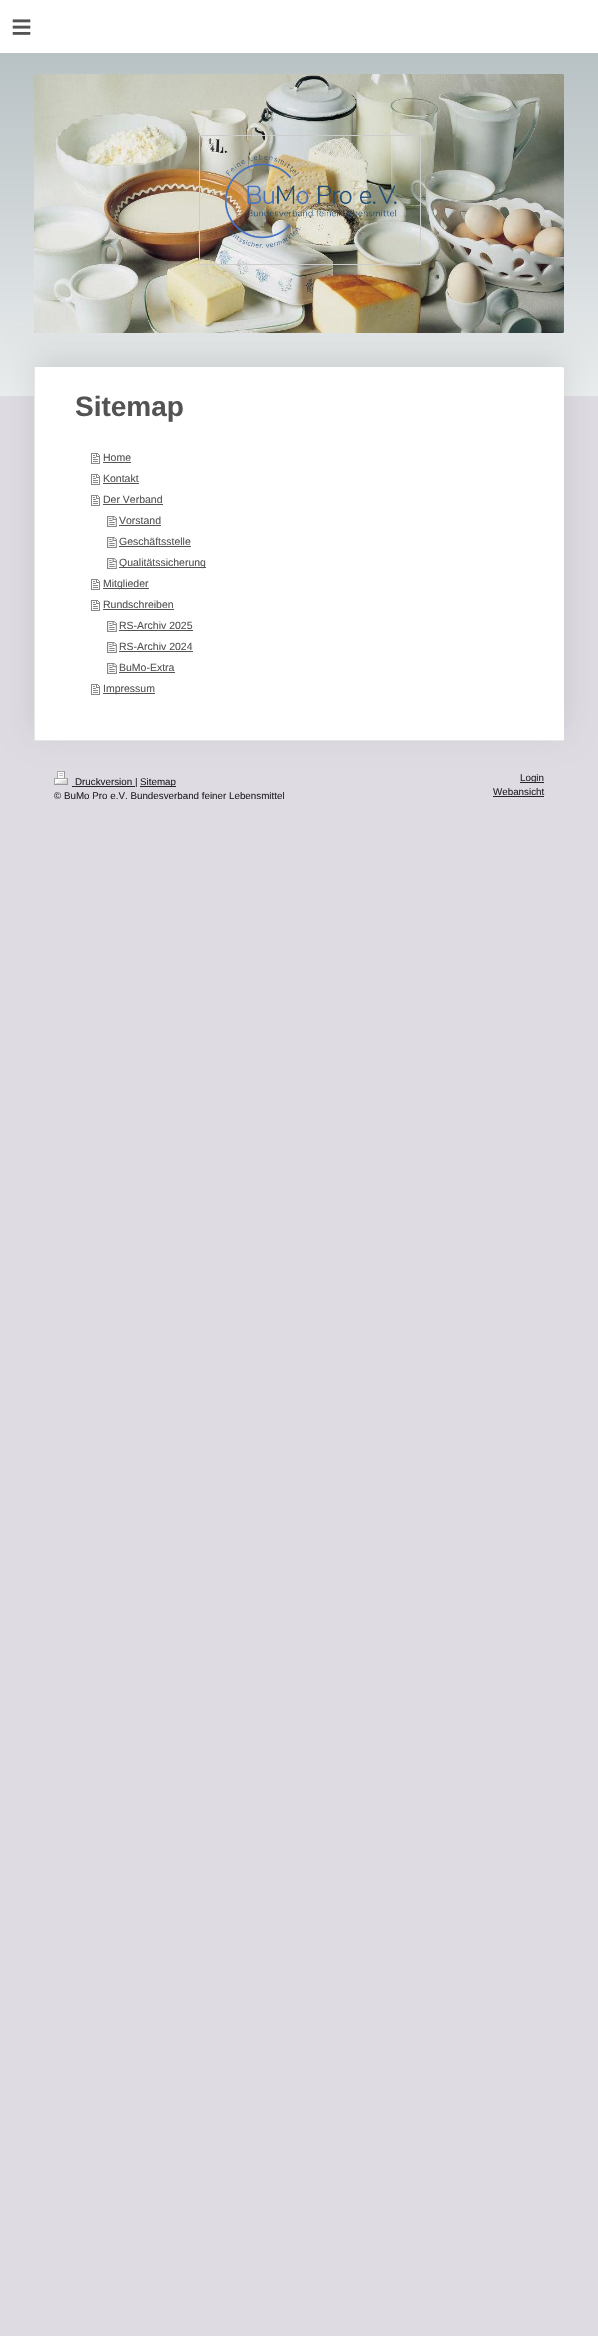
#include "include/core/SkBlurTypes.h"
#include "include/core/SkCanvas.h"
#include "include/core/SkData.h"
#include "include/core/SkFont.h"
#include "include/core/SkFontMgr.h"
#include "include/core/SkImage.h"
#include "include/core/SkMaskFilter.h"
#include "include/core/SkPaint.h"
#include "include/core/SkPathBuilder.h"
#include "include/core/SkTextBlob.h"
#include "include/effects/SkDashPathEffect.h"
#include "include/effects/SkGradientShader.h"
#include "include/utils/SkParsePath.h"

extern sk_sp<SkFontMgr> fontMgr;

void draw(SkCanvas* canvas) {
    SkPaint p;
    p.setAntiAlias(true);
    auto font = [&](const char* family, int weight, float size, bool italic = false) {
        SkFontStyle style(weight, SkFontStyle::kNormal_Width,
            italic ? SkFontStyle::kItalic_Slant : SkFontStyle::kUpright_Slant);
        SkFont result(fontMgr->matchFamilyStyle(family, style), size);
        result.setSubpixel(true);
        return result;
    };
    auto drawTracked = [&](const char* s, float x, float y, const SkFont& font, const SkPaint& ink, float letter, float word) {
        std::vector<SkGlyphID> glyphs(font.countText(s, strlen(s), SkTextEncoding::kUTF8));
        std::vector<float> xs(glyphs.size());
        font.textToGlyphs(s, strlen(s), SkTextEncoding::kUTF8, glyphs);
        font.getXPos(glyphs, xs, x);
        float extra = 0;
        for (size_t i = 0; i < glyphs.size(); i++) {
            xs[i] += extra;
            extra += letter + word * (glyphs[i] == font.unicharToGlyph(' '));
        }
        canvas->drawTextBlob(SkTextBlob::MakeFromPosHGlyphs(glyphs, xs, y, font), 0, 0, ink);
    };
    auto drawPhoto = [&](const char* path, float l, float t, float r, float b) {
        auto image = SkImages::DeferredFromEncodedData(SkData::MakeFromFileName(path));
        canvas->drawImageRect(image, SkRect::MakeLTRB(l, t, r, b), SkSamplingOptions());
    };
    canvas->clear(0xFFDEDCE2);
    p.setColor(0xFFFFFFFF);
    canvas->drawRect(SkRect::MakeLTRB(0, 0, 598, 53), p);
    auto font1 = font("Liberation Sans", 400, 36);
    p.setColor(0xFF535353);
    drawTracked("≡", 11, 39, font1, p, 10, 0);
    {
        const SkColor colors[] = {0xFFEAEDEE, 0xFFB8C1C4};
        const float stops[] = {0, 1};
        const SkPoint ends[] = {{0, 396}, {0, 53}};
        p.setShader(SkGradientShader::MakeLinear(ends, colors, stops, 2, SkTileMode::kClamp));
        p.setAlpha(255);
    }
    canvas->drawRect(SkRect::MakeLTRB(0, 53, 598, 396), p);
    drawPhoto("media/1.png", 34, 74, 564, 333);
    p.setShader(nullptr);
    p.setColor(0x1A000000);
    p.setMaskFilter(SkMaskFilter::MakeBlur(kNormal_SkBlurStyle, 15));
    canvas->drawRoundRect(SkRect::MakeLTRB(34, 357, 564, 731), 2, 2, p);
    p.setMaskFilter(nullptr);
    drawPhoto("media/2.png", 34, 74, 564, 333);
    p.setStyle(SkPaint::kStroke_Style);
    p.setStrokeWidth(1);
    p.setColor(0xFFCCCCCC);
    canvas->drawRect(SkRect::MakeLTRB(199.5f, 135.5f, 420.5f, 264.5f), p);
    drawPhoto("media/3.png", 225, 154, 397, 248);
    p.setStyle(SkPaint::kFill_Style);
    p.setColor(0xFFFFFFFF);
    canvas->drawRoundRect(SkRect::MakeLTRB(34, 367, 564, 741), 2, 2, p);
    p.setColor(0xFFE6E6E6);
    canvas->drawRect(SkRect::MakeLTRB(35, 740, 563, 741), p);
    canvas->drawRect(SkRect::MakeLTRB(34, 367, 35, 740), p);
    auto font2 = font("Liberation Sans", 700, 28);
    p.setColor(0xFF535353);
    canvas->drawString("Sitemap", 75, 416, font2, p);
    drawPhoto("media/4.png", 91, 453, 100, 464);
    auto font3 = font("Liberation Sans", 400, 10.5f);
    canvas->drawString("Home", 103, 461, font3, p);
    canvas->drawRect(SkRect::MakeLTRB(103, 462, 131, 463), p);
    drawPhoto("media/4.png", 91, 474, 100, 485);
    canvas->drawString("Kontakt", 103, 482, font3, p);
    canvas->drawRect(SkRect::MakeLTRB(103, 483, 139, 484), p);
    drawPhoto("media/4.png", 91, 495, 100, 506);
    canvas->drawString("Der Verband", 103, 503, font3, p);
    canvas->drawRect(SkRect::MakeLTRB(103, 504, 163, 505), p);
    drawPhoto("media/5.png", 107, 516, 117, 527);
    canvas->drawString("Vorstand", 119, 524, font3, p);
    canvas->drawRect(SkRect::MakeLTRB(119, 525, 161, 526), p);
    drawPhoto("media/5.png", 107, 537, 117, 548);
    canvas->drawString("Geschäftsstelle", 119, 545, font3, p);
    canvas->drawRect(SkRect::MakeLTRB(119, 546, 191, 547), p);
    drawPhoto("media/5.png", 107, 558, 117, 569);
    canvas->drawRect(SkRect::MakeLTRB(119, 567, 206, 568), p);
    canvas->drawString("Qualitätssicherung", 119, 566, font3, p);
    drawPhoto("media/4.png", 91, 579, 100, 590);
    canvas->drawRect(SkRect::MakeLTRB(103, 588, 149, 589), p);
    canvas->drawString("Mitglieder", 103, 587, font3, p);
    drawPhoto("media/4.png", 91, 600, 100, 611);
    canvas->drawString("Rundschreiben", 103, 608, font3, p);
    canvas->drawRect(SkRect::MakeLTRB(103, 609, 174, 610), p);
    drawPhoto("media/5.png", 107, 621, 117, 632);
    canvas->drawString("RS-Archiv 2025", 119, 629, font3, p);
    canvas->drawRect(SkRect::MakeLTRB(119, 630, 193, 631), p);
    drawPhoto("media/5.png", 107, 642, 117, 653);
    canvas->drawString("RS-Archiv 2024", 119, 650, font3, p);
    canvas->drawRect(SkRect::MakeLTRB(119, 651, 193, 652), p);
    drawPhoto("media/5.png", 107, 663, 117, 674);
    canvas->drawString("BuMo-Extra", 119, 671, font3, p);
    canvas->drawRect(SkRect::MakeLTRB(119, 672, 175, 673), p);
    drawPhoto("media/4.png", 91, 684, 100, 695);
    canvas->drawRect(SkRect::MakeLTRB(103, 693, 155, 694), p);
    canvas->drawString("Impressum", 103, 692, font3, p);
    drawPhoto("media/6.png", 54, 771, 68, 785);
    p.setColor(0xFF272529);
    canvas->drawRect(SkRect::MakeLTRB(72, 786, 135, 787), p);
    auto font4 = font("Liberation Sans", 400, 9.8f);
    canvas->drawString("Druckversion |", 75, 785, font4, p);
    canvas->drawRect(SkRect::MakeLTRB(140, 786, 176, 787), p);
    canvas->drawString("Sitemap", 140, 785, font4, p);
    canvas->drawString("© BuMo Pro e.V. Bundesverband feiner Lebensmittel", 54, 799, font4, p);
    canvas->drawRect(SkRect::MakeLTRB(520, 782, 544, 783), p);
    canvas->drawString("Login", 520, 781, font4, p);
    canvas->drawString("Webansicht", 493, 795, font4, p);
    canvas->drawRect(SkRect::MakeLTRB(493, 796, 544, 797), p);
}
